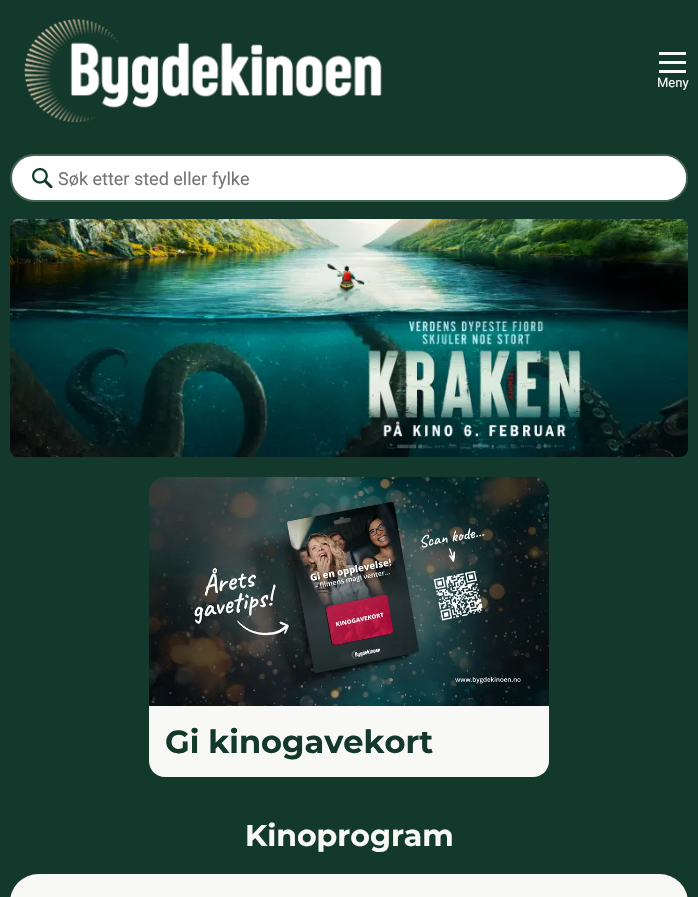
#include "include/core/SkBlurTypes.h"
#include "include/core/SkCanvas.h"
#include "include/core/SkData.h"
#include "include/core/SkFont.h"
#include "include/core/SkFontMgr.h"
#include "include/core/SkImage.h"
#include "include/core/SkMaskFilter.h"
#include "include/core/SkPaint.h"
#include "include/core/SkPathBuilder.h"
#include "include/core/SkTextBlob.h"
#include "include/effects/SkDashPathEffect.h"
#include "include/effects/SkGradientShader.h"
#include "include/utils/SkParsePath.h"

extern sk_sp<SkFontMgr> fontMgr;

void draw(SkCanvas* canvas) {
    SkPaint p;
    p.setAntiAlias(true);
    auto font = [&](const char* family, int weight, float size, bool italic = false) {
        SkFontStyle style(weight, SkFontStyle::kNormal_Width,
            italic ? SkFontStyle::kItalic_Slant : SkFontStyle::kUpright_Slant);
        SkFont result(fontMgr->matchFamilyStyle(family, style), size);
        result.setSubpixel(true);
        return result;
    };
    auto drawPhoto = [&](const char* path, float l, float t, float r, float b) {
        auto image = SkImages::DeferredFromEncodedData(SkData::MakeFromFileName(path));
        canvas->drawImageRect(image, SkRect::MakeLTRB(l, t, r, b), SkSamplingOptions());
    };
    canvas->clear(0xFF13382C);
    drawPhoto("media/1.png", 24, 18, 382, 123);
    {
        const struct { float l, t, r, b; SkColor color; } items[] = {
            {659, 52, 686, 55, 0xFFF8F8F7},
            {659, 61, 686, 64, 0xFFF8F8F7},
            {659, 70, 686, 73, 0xFFF8F8F7},
        };
        for (auto [l, t, r, b, color] : items) {
            p.setColor(color);
            canvas->drawRect(SkRect::MakeLTRB(l, t, r, b), p);
        }
    }
    auto font1 = font("Roboto", 400, 13);
    canvas->drawString("Meny", 657, 87, font1, p);
    p.setColor(0xFFFFFFFF);
    canvas->drawRoundRect(SkRect::MakeLTRB(11, 155, 687, 201), 23, 23, p);
    p.setStyle(SkPaint::kStroke_Style);
    p.setStrokeWidth(2);
    p.setColor(0xFF456351);
    canvas->drawRoundRect(SkRect::MakeLTRB(11, 155, 687, 201), 23, 23, p);
    drawPhoto("media/2.png", 32, 168, 53, 188);
    p.setStyle(SkPaint::kFill_Style);
    p.setColor(0xFFFFFFFF);
    canvas->drawPath(SkPathBuilder().moveTo(58, 156).lineTo(664, 156).cubicTo(676, 156, 686, 166, 686, 178).cubicTo(686, 190, 676, 200, 664, 200).lineTo(58, 200).close().detach(), p);
    auto font2 = font("Roboto", 400, 18);
    p.setColor(0xFF757575);
    canvas->drawString("Søk etter sted eller fylke", 58, 185, font2, p);
    drawPhoto("media/3.png", 10, 219, 688, 457);
    drawPhoto("media/4.png", 149, 477, 549, 706);
    p.setColor(0xFFF8F8F7);
    canvas->drawPath(SkPathBuilder().moveTo(149, 706).lineTo(549, 706).lineTo(549, 761).cubicTo(549, 770, 542, 777, 533, 777).lineTo(165, 777).cubicTo(156, 777, 149, 770, 149, 761).close().detach(), p);
    auto font3 = font("Montserrat", 700, 32);
    p.setColor(0xFF13382C);
    canvas->drawString("Gi kinogavekort", 165, 753, font3, p);
    auto font4 = font("Montserrat", 700, 30);
    p.setColor(0xFFF8F8F7);
    canvas->drawString("Kinoprogram", 245, 846, font4, p);
    canvas->drawRoundRect(SkRect::MakeLTRB(10, 874, 688, 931), 34, 34, p);
}
